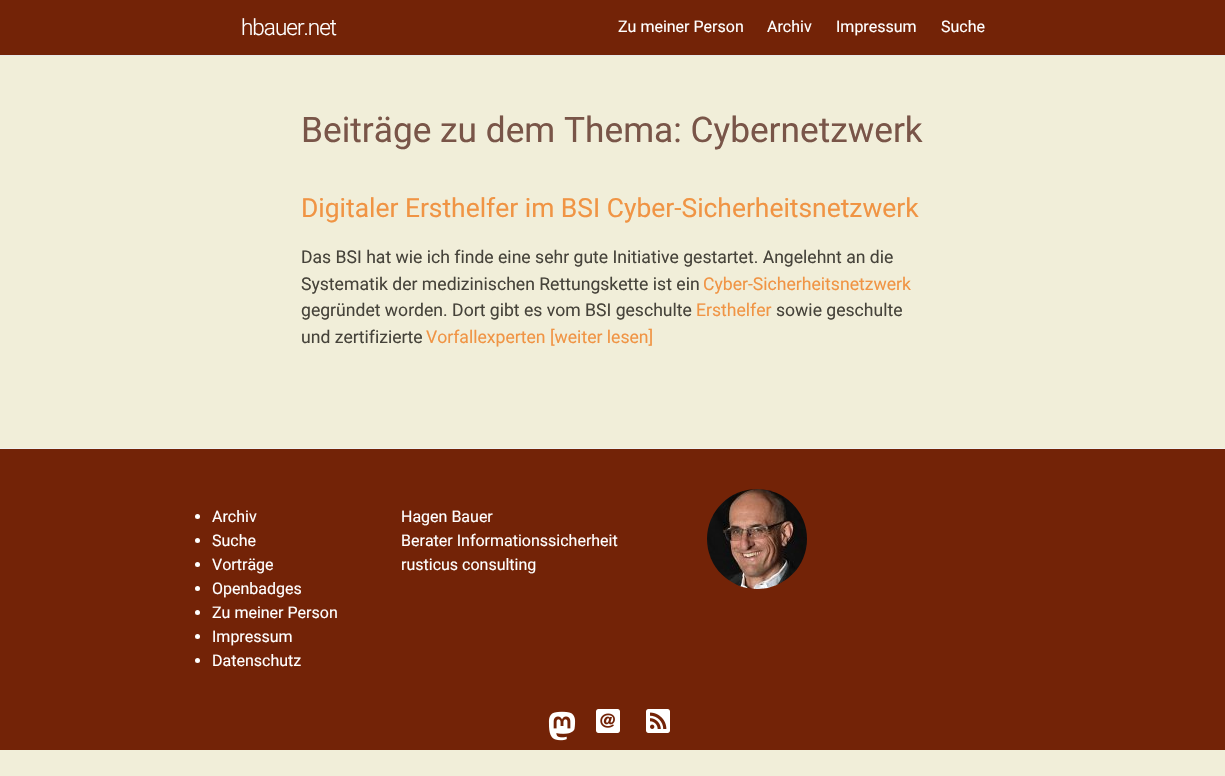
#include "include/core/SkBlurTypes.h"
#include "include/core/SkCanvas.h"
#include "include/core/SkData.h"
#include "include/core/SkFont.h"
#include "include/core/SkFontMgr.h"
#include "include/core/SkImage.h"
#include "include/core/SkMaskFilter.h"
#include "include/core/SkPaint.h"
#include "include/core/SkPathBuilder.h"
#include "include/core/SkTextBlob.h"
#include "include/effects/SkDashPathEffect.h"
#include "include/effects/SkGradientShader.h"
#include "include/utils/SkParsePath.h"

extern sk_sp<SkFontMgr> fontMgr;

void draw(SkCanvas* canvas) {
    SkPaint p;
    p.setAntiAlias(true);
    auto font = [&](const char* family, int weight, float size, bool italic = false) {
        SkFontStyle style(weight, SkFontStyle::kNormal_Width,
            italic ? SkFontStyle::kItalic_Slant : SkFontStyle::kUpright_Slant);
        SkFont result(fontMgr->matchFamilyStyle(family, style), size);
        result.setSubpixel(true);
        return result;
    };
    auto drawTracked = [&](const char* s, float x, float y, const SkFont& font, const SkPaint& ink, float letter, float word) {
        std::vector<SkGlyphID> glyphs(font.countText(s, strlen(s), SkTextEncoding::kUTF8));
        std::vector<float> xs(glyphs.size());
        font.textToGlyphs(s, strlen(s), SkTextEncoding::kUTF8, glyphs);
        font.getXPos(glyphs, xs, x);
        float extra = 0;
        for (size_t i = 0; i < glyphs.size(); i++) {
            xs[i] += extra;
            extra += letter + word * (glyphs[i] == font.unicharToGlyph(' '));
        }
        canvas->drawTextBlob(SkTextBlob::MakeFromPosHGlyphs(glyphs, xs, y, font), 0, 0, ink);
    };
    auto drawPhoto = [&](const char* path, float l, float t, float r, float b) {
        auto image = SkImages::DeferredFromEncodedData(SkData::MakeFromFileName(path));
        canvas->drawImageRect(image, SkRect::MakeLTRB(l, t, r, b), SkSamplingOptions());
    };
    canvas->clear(0xFFF1EED9);
    p.setColor(0xFF732307);
    canvas->drawRect(SkRect::MakeLTRB(0, 0, 1225, 55), p);
    p.setColor(0xFFE8E8E8);
    canvas->drawRect(SkRect::MakeLTRB(0, 55, 1225, 56), p);
    auto font1 = font("Roboto", 300, 22.5f);
    p.setColor(0xFFFFFFFF);
    drawTracked("hbauer.net", 241, 35, font1, p, -1, 0);
    auto font2 = font("Roboto", 400, 16);
    {
        const struct { const char* s; float x, y; } items[] = {
            {"Zu meiner Person", 618, 32},
            {"Archiv", 767, 32},
            {"Impressum", 836, 32},
            {"Suche", 941, 32},
        };
        for (auto [s, x, y] : items) {
            canvas->drawString(s, x, y, font2, p);
        }
    }
    auto font3 = font("Roboto", 400, 35.25f);
    p.setColor(0xFF795548);
    canvas->drawString("Beiträge zu dem Thema: Cybernetzwerk", 301, 142, font3, p);
    auto font4 = font("Roboto", 400, 26.4f);
    p.setColor(0xFFF09444);
    canvas->drawString("Digitaler Ersthelfer im BSI Cyber-Sicherheitsnetzwerk", 301, 217, font4, p);
    auto font5 = font("Roboto", 400, 17.6f);
    p.setColor(0xFF46433A);
    canvas->drawString("Das BSI hat wie ich finde eine sehr gute Initiative gestartet. Angelehnt an die", 301, 263, font5, p);
    canvas->drawString("Systematik der medizinischen Rettungskette ist ein", 301, 290, font5, p);
    p.setColor(0xFFF09444);
    canvas->drawString("Cyber-Sicherheitsnetzwerk", 703, 290, font5, p);
    p.setColor(0xFF46433A);
    canvas->drawString("gegründet worden. Dort gibt es vom BSI geschulte", 301, 316, font5, p);
    p.setColor(0xFFF09444);
    canvas->drawString("Ersthelfer", 696, 316, font5, p);
    p.setColor(0xFF46433A);
    canvas->drawString("sowie geschulte", 776, 316, font5, p);
    canvas->drawString("und zertifizierte", 301, 343, font5, p);
    p.setColor(0xFFF09444);
    canvas->drawString("Vorfallexperten [weiter lesen]", 426, 343, font5, p);
    p.setColor(0xFF732307);
    canvas->drawRect(SkRect::MakeLTRB(0, 449, 1225, 750), p);
    p.setColor(0xFFEFF0F1);
    canvas->drawRect(SkRect::MakeLTRB(0, 448, 1225, 449), p);
    p.setColor(0xFFFFFFFF);
    canvas->drawCircle(197.5f, 516.5f, 2.5f, p);
    canvas->drawString("Archiv", 212, 522, font2, p);
    canvas->drawCircle(197.5f, 540.5f, 2.5f, p);
    canvas->drawString("Suche", 212, 546, font2, p);
    canvas->drawCircle(197.5f, 564.5f, 2.5f, p);
    canvas->drawString("Vorträge", 212, 570, font2, p);
    canvas->drawCircle(197.5f, 588.5f, 2.5f, p);
    canvas->drawString("Openbadges", 212, 594, font2, p);
    canvas->drawCircle(197.5f, 612.5f, 2.5f, p);
    canvas->drawString("Zu meiner Person", 212, 618, font2, p);
    canvas->drawCircle(197.5f, 636.5f, 2.5f, p);
    canvas->drawString("Impressum", 212, 642, font2, p);
    canvas->drawCircle(197.5f, 660.5f, 2.5f, p);
    {
        const struct { const char* s; float x, y; } items[] = {
            {"Datenschutz", 212, 666},
            {"Hagen Bauer", 401, 522},
            {"Berater Informationssicherheit", 401, 546},
            {"rusticus consulting", 401, 570},
        };
        for (auto [s, x, y] : items) {
            canvas->drawString(s, x, y, font2, p);
        }
    }
    drawPhoto("media/1.png", 707, 489, 807, 589);
    drawPhoto("media/2.png", 548, 711, 576, 741);
    drawPhoto("media/3.png", 596, 709, 620, 733);
    drawPhoto("media/4.png", 646, 709, 670, 733);
}
